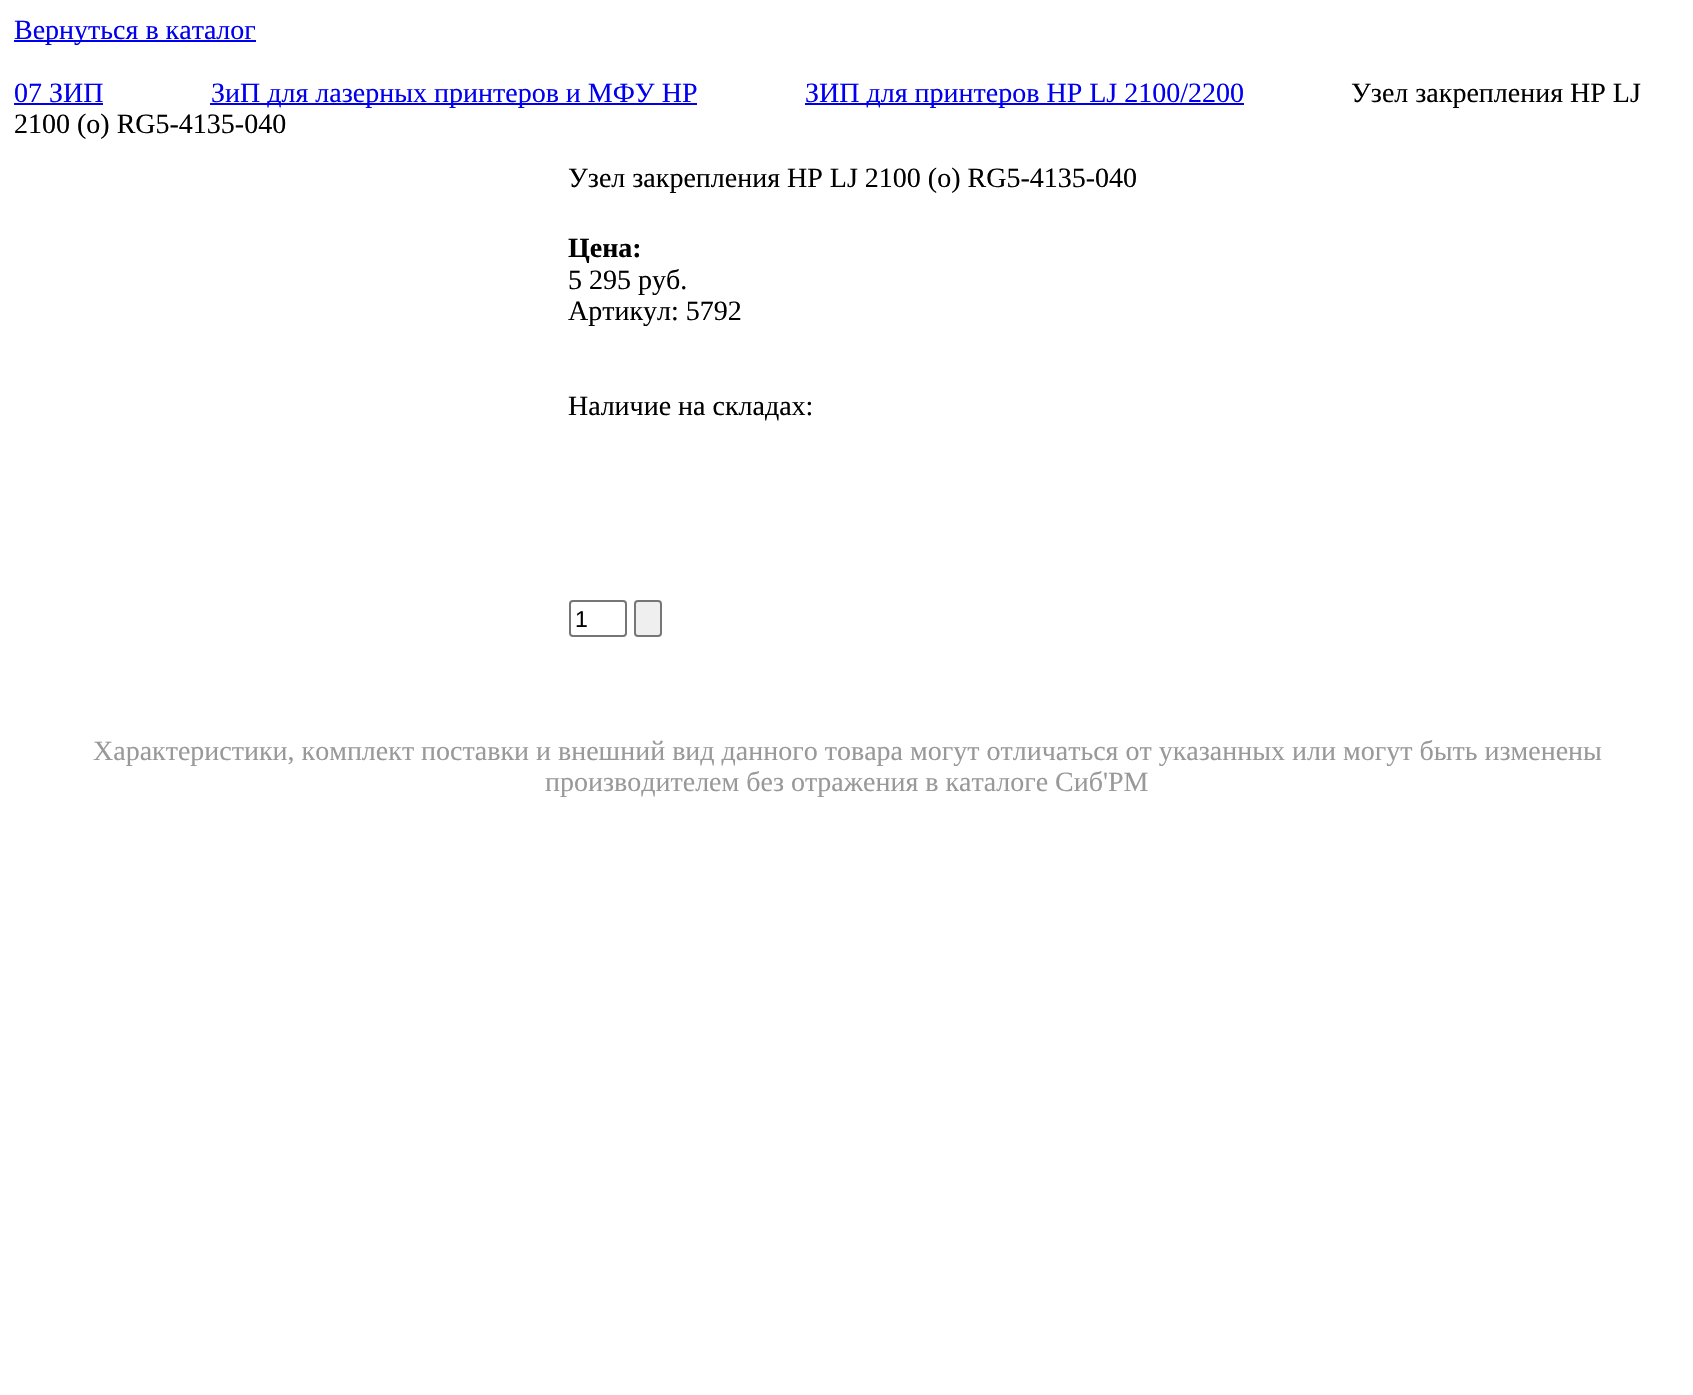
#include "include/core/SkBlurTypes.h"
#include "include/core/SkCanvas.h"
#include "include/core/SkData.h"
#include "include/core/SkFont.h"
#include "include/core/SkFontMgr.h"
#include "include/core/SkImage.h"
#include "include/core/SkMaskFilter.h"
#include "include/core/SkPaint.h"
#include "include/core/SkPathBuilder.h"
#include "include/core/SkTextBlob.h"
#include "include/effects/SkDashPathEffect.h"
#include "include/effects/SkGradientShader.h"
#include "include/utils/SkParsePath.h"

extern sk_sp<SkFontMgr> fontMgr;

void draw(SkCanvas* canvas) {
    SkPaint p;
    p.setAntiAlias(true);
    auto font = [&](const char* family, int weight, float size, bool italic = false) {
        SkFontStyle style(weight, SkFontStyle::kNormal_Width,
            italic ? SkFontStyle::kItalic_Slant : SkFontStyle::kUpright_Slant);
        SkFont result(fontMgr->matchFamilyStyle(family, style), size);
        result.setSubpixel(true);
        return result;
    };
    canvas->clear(0xFFFFFFFF);
    p.setColor(0xFF0000EE);
    canvas->drawRect(SkRect::MakeLTRB(14, 40, 256, 42), p);
    auto font1 = font("Liberation Serif", 400, 28);
    canvas->drawString("Вернуться в каталог", 14, 39, font1, p);
    canvas->drawString("07 ЗИП", 14, 102, font1, p);
    canvas->drawRect(SkRect::MakeLTRB(14, 103, 103, 105), p);
    canvas->drawRect(SkRect::MakeLTRB(210, 103, 697, 105), p);
    canvas->drawString("ЗиП для лазерных принтеров и МФУ НР", 211, 102, font1, p);
    canvas->drawRect(SkRect::MakeLTRB(805, 103, 1244, 105), p);
    canvas->drawString("ЗИП для принтеров HP LJ 2100/2200", 805, 102, font1, p);
    p.setColor(0xFF000000);
    {
        const struct { const char* s; float x, y; } items[] = {
            {"Узел закрепления HP LJ", 1351, 102},
            {"2100 (о) RG5-4135-040", 14, 133},
            {"Узел закрепления HP LJ 2100 (о) RG5-4135-040", 568, 187},
        };
        for (auto [s, x, y] : items) {
            canvas->drawString(s, x, y, font1, p);
        }
    }
    auto font2 = font("Liberation Serif", 700, 28);
    canvas->drawString("Цена:", 568, 257, font2, p);
    {
        const struct { const char* s; float x, y; } items[] = {
            {"5 295 руб.", 568, 289},
            {"Артикул: 5792", 568, 320},
            {"Наличие на складах:", 568, 415},
        };
        for (auto [s, x, y] : items) {
            canvas->drawString(s, x, y, font1, p);
        }
    }
    p.setStyle(SkPaint::kStroke_Style);
    p.setStrokeWidth(2);
    p.setColor(0xFF767676);
    canvas->drawRoundRect(SkRect::MakeLTRB(570, 601, 626, 636), 3, 3, p);
    auto font3 = font("Liberation Sans", 400, 23);
    p.setStyle(SkPaint::kFill_Style);
    p.setColor(0xFF000000);
    canvas->drawString("1", 575, 627, font3, p);
    p.setColor(0xFFEFEFEF);
    canvas->drawRoundRect(SkRect::MakeLTRB(635, 601, 661, 636), 3, 3, p);
    p.setStyle(SkPaint::kStroke_Style);
    p.setColor(0xFF767676);
    canvas->drawRoundRect(SkRect::MakeLTRB(635, 601, 661, 636), 3, 3, p);
    p.setStyle(SkPaint::kFill_Style);
    p.setColor(0xFF999999);
    canvas->drawString("Xарактеристики, комплект поставки и внешний вид данного товара могут отличаться от указанных или могут быть изменены", 93, 760, font1, p);
    canvas->drawString("производителем без отражения в каталоге Сиб'РМ", 545, 791, font1, p);
}
